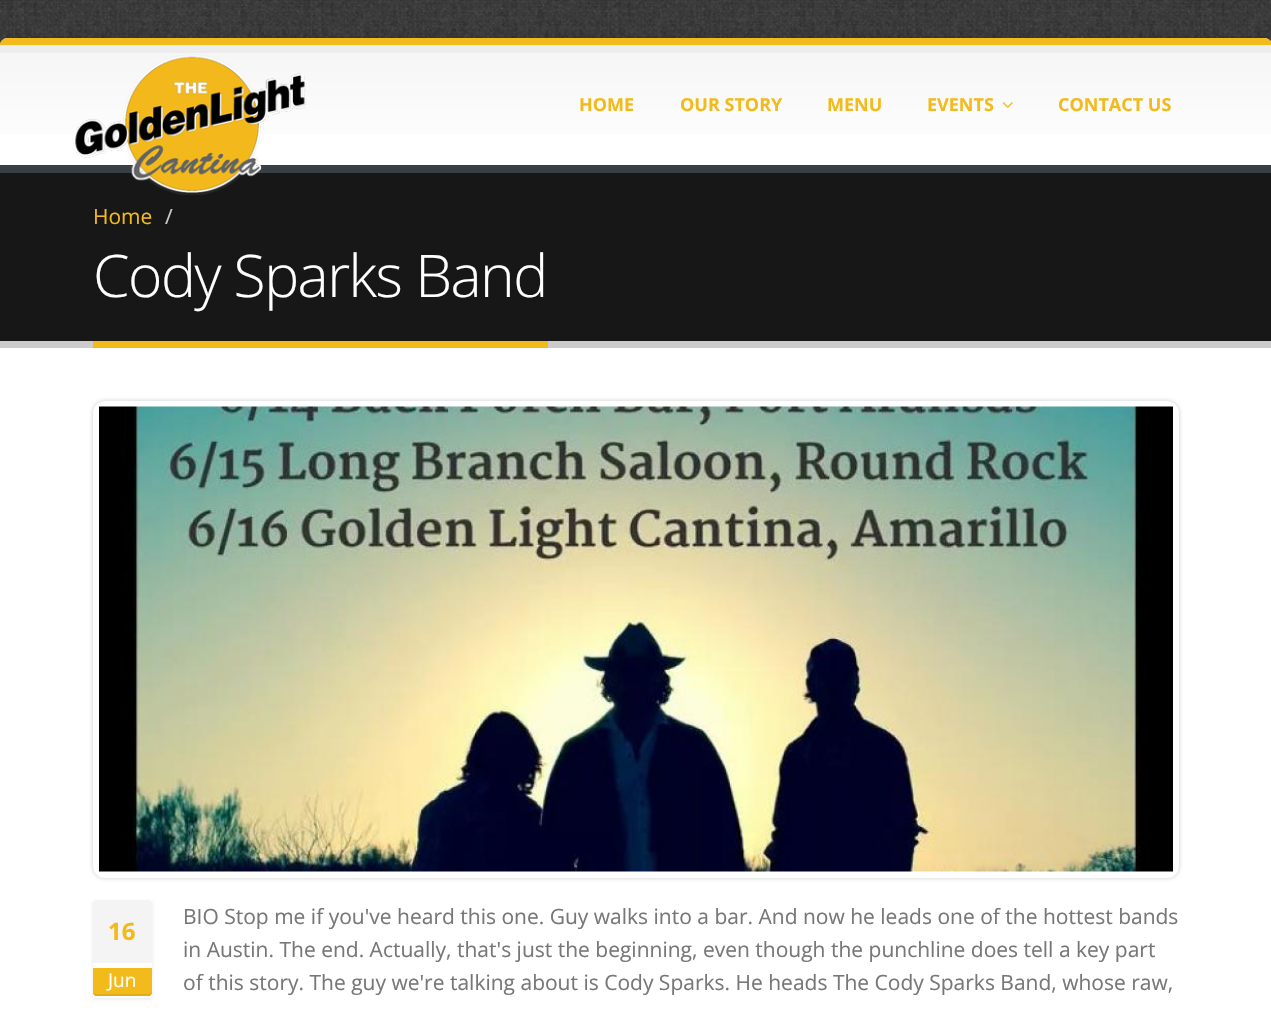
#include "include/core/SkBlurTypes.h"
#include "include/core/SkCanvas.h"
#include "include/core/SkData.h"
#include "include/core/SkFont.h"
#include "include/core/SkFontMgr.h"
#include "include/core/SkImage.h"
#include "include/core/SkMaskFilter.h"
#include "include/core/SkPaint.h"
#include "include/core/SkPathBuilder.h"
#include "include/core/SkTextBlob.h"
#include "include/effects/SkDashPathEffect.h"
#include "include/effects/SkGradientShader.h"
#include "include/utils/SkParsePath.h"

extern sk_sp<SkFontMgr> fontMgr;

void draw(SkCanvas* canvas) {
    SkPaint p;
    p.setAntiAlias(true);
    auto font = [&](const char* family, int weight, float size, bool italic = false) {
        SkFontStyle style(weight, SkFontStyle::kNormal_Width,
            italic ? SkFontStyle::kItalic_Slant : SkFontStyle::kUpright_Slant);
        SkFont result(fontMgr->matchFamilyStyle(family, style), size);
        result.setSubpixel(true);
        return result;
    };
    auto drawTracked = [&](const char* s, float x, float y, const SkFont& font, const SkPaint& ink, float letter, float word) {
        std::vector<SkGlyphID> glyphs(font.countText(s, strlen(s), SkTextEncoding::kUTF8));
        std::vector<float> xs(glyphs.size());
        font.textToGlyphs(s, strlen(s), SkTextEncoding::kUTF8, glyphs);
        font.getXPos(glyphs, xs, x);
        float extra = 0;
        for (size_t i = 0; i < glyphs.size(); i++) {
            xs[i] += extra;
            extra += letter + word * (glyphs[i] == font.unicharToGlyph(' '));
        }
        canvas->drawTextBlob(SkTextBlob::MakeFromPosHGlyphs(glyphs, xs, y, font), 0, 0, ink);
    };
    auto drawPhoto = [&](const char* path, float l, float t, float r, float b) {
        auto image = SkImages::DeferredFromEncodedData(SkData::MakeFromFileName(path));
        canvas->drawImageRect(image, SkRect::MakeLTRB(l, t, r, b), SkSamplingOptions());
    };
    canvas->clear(0xFFFFFFFF);
    drawPhoto("media/1.png", 0, 0, 1271, 45);
    p.setColor(0x26000000);
    p.setMaskFilter(SkMaskFilter::MakeBlur(kNormal_SkBlurStyle, 3));
    canvas->drawRoundRect(SkRect::MakeLTRB(0, 38, 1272, 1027), 8, 8, p);
    p.setMaskFilter(nullptr);
    p.setColor(0xFFFFFFFF);
    canvas->drawRoundRect(SkRect::MakeLTRB(0, 38, 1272, 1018), 8, 8, p);
    p.setColor(0xFFF3BA1C);
    canvas->drawPath(SkPathBuilder().moveTo(8, 38).cubicTo(3, 38, 0, 41, 0, 45).lineTo(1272, 45).cubicTo(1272, 41, 1269, 38, 1264, 38).close().detach(), p);
    {
        const SkColor colors[] = {0xFFF6F6F6, 0xFFFFFFFF};
        const float stops[] = {0, 1};
        const SkPoint ends[] = {{636, 52}, {636, 165}};
        p.setShader(SkGradientShader::MakeLinear(ends, colors, stops, 2, SkTileMode::kClamp));
        p.setAlpha(255);
    }
    canvas->drawRect(SkRect::MakeLTRB(0, 53, 1271, 134), p);
    p.setShader(nullptr);
    {
        const struct { float l, t, r, b; SkColor color; } items[] = {
            {0, 45, 1271, 53, 0xFFEDEDED},
            {0, 173, 1271, 341, 0xFF171717},
            {0, 165, 1271, 173, 0xFF384045},
        };
        for (auto [l, t, r, b, color] : items) {
            p.setColor(color);
            canvas->drawRect(SkRect::MakeLTRB(l, t, r, b), p);
        }
    }
    drawPhoto("media/2.png", 75, 54, 308, 195);
    auto font1 = font("Open Sans", 700, 18);
    p.setColor(0xFFF3BA1C);
    {
        const struct { const char* s; float x, y; } items[] = {
            {"HOME", 579, 111},
            {"OUR STORY", 680, 111},
            {"MENU", 827, 111},
            {"EVENTS", 927, 111},
        };
        for (auto [s, x, y] : items) {
            canvas->drawString(s, x, y, font1, p);
        }
    }
    drawPhoto("media/3.png", 1002, 102, 1013, 108);
    canvas->drawString("CONTACT US", 1058, 111, font1, p);
    p.setColor(0xFFCCCCCC);
    canvas->drawRect(SkRect::MakeLTRB(0, 341, 1271, 348), p);
    auto font2 = font("Open Sans", 400, 21);
    p.setColor(0xFFF3BA1C);
    canvas->drawString("Home", 93, 224, font2, p);
    p.setColor(0xFFCCCCCC);
    canvas->drawString("/", 165, 224, font2, p);
    p.setColor(0xFFF3BA1C);
    canvas->drawRect(SkRect::MakeLTRB(93, 341, 548, 348), p);
    auto font3 = font("Open Sans", 300, 58.75f);
    p.setColor(0xFFFFFFFF);
    drawTracked("Cody Sparks Band", 93, 297, font3, p, -1.5f, 0);
    p.setColor(0x33000000);
    p.setMaskFilter(SkMaskFilter::MakeBlur(kNormal_SkBlurStyle, 2));
    canvas->drawRoundRect(SkRect::MakeLTRB(93, 401, 1179, 878), 12, 12, p);
    p.setMaskFilter(nullptr);
    p.setColor(0xFFFFFFFF);
    canvas->drawRoundRect(SkRect::MakeLTRB(96, 404, 1176, 875), 9, 9, p);
    p.setStyle(SkPaint::kStroke_Style);
    p.setStrokeWidth(6);
    canvas->drawRoundRect(SkRect::MakeLTRB(96, 404, 1176, 875), 9, 9, p);
    drawPhoto("media/4.png", 99, 406, 1173, 872);
    canvas->save();
    canvas->clipPath(SkPathBuilder(SkPathFillType::kEvenOdd).moveTo(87, 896).lineTo(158, 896).lineTo(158, 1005).lineTo(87, 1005).close().moveTo(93, 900).lineTo(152, 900).lineTo(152, 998).lineTo(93, 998).close().detach(), true);
    p.setStyle(SkPaint::kFill_Style);
    p.setColor(0x1A000000);
    p.setMaskFilter(SkMaskFilter::MakeBlur(kNormal_SkBlurStyle, 1.5f));
    canvas->drawRect(SkRect::MakeLTRB(93, 902, 152, 999), p);
    p.setMaskFilter(nullptr);
    canvas->restore();
    p.setColor(0xFFF4F4F4);
    canvas->drawPath(SkPathBuilder().moveTo(96, 900).lineTo(149, 900).cubicTo(150.5f, 900, 152, 901.5f, 152, 903).lineTo(152, 963).lineTo(93, 963).lineTo(93, 903).cubicTo(93, 901.5f, 94.5f, 900, 96, 900).close().detach(), p);
    auto font4 = font("Open Sans", 700, 24);
    p.setColor(0xFFF3BA1C);
    canvas->drawString("16", 108, 940, font4, p);
    canvas->drawPath(SkPathBuilder().moveTo(93, 968).lineTo(152, 968).lineTo(152, 993).cubicTo(152, 994.5f, 150.5f, 996, 149, 996).lineTo(96, 996).cubicTo(94.5f, 996, 93, 994.5f, 93, 993).close().detach(), p);
    auto font5 = font("Open Sans", 400, 19);
    p.setColor(0xFFFFFFFF);
    canvas->drawString("Jun", 108, 987, font5, p);
    p.setColor(0x12000000);
    canvas->drawPath(SkPathBuilder().moveTo(93, 992).cubicTo(93, 998, 100, 996, 105, 996).lineTo(140, 996).cubicTo(145, 996, 152, 998, 152, 992).cubicTo(152, 993, 150, 994, 148, 994).lineTo(96, 994).cubicTo(94, 994, 93, 993, 93, 992).close().detach(), p);
    p.setColor(0xFF777777);
    {
        const struct { const char* s; float x, y; } items[] = {
            {"BIO Stop me if you've heard this one. Guy walks into a bar. And now he leads one of the hottest bands", 183, 924},
            {"in Austin. The end. Actually, that's just the beginning, even though the punchline does tell a key part", 183, 957},
            {"of this story. The guy we're talking about is Cody Sparks. He heads The Cody Sparks Band, whose raw,", 183, 990},
        };
        for (auto [s, x, y] : items) {
            canvas->drawString(s, x, y, font2, p);
        }
    }
}
